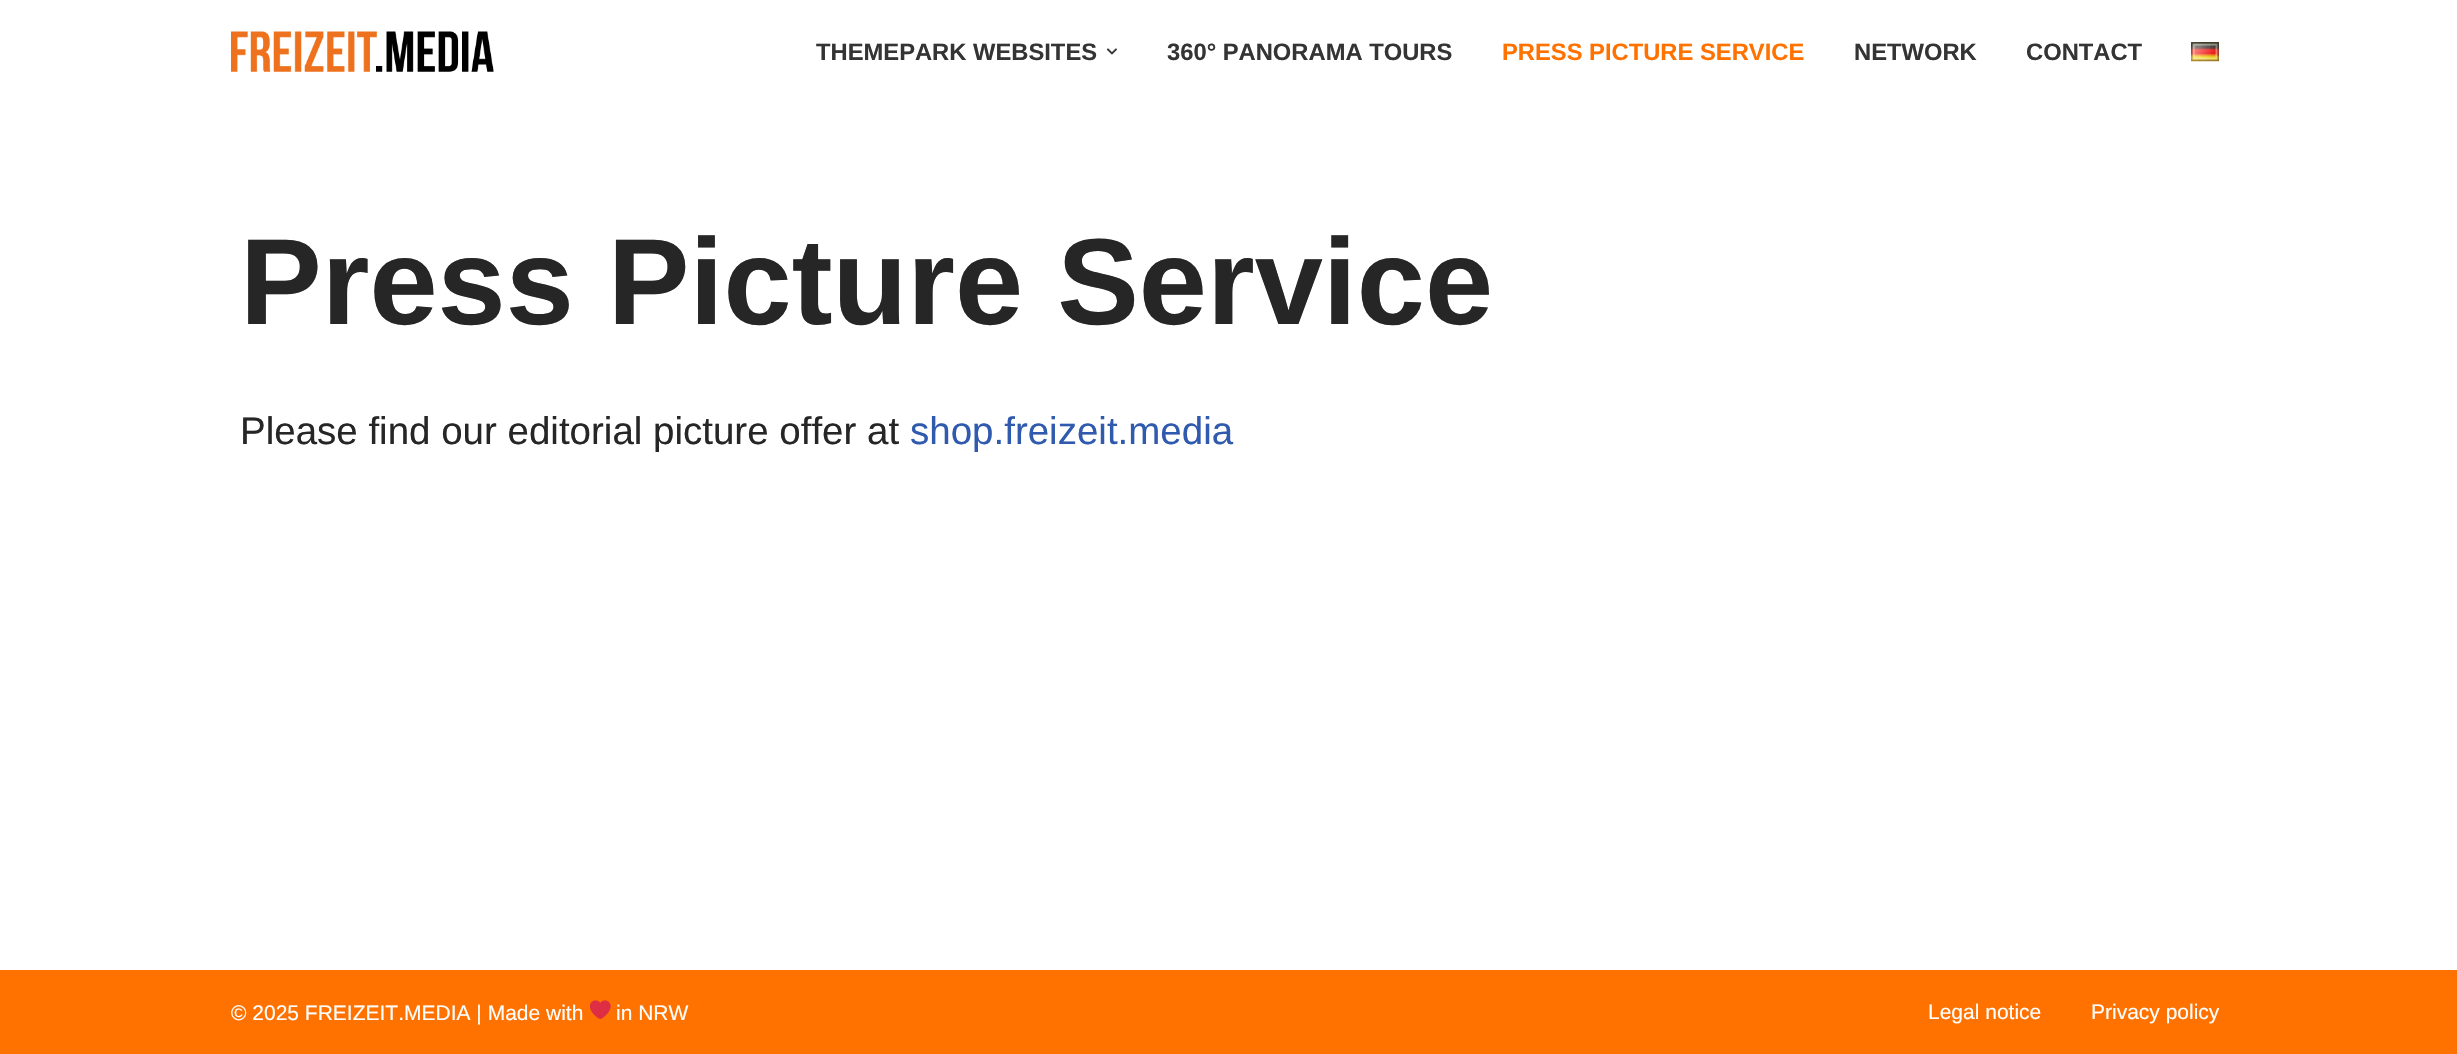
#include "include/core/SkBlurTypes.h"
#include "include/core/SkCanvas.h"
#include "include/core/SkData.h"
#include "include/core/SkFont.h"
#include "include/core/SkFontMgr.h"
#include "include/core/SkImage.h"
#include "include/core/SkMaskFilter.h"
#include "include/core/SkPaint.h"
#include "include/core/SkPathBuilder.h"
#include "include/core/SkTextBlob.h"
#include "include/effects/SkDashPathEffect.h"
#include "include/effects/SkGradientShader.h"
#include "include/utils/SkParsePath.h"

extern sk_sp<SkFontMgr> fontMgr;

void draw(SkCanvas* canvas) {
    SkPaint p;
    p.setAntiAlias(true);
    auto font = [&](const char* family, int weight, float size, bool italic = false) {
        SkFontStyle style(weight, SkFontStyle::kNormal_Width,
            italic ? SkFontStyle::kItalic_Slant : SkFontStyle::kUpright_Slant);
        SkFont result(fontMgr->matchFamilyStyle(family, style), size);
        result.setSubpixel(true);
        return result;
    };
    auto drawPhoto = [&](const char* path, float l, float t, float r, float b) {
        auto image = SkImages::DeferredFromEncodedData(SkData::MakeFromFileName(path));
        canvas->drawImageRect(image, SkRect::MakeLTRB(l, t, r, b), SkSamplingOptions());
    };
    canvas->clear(0xFFFFFFFF);
    drawPhoto("media/1.png", 231, 31, 494, 72);
    auto font1 = font("Liberation Sans", 700, 23.75f);
    p.setColor(0xFF343434);
    canvas->drawString("THEMEPARK WEBSITES", 816, 60, font1, p);
    drawPhoto("media/2.png", 1106, 48, 1117, 55);
    canvas->drawString("360° PANORAMA TOURS", 1167, 60, font1, p);
    p.setColor(0xFFFF7200);
    canvas->drawString("PRESS PICTURE SERVICE", 1502, 60, font1, p);
    p.setColor(0xFF343434);
    canvas->drawString("NETWORK", 1854, 60, font1, p);
    canvas->drawString("CONTACT", 2026, 60, font1, p);
    drawPhoto("media/3.png", 2191, 42, 2219, 62);
    auto font2 = font("Liberation Sans", 700, 122.5f);
    p.setColor(0xFF272626);
    canvas->drawString("Press Picture Service", 240, 324, font2, p);
    auto font3 = font("Liberation Sans", 400, 38.5f);
    canvas->drawString("Please find our editorial picture offer at", 240, 444, font3, p);
    p.setColor(0xFF2F5AAE);
    canvas->drawString("shop.freizeit.media", 910, 444, font3, p);
    p.setColor(0xFFFF7200);
    canvas->drawRect(SkRect::MakeLTRB(0, 970, 2457, 1054), p);
    auto font4 = font("Liberation Sans", 400, 21);
    p.setColor(0xFFFFFFFF);
    canvas->drawString("© 2025 FREIZEIT.MEDIA | Made with", 231, 1020, font4, p);
    drawPhoto("media/4.png", 590, 1000, 611, 1019);
    {
        const struct { const char* s; float x, y; } items[] = {
            {"in NRW", 616, 1020},
            {"Legal notice", 1928, 1019},
            {"Privacy policy", 2091, 1019},
        };
        for (auto [s, x, y] : items) {
            canvas->drawString(s, x, y, font4, p);
        }
    }
}
